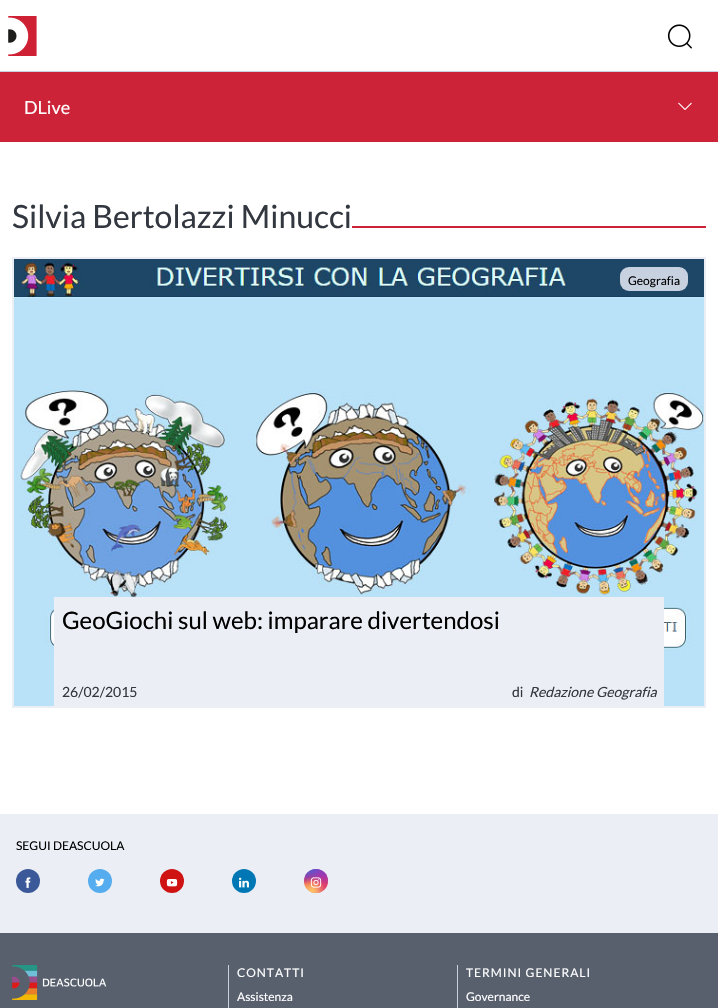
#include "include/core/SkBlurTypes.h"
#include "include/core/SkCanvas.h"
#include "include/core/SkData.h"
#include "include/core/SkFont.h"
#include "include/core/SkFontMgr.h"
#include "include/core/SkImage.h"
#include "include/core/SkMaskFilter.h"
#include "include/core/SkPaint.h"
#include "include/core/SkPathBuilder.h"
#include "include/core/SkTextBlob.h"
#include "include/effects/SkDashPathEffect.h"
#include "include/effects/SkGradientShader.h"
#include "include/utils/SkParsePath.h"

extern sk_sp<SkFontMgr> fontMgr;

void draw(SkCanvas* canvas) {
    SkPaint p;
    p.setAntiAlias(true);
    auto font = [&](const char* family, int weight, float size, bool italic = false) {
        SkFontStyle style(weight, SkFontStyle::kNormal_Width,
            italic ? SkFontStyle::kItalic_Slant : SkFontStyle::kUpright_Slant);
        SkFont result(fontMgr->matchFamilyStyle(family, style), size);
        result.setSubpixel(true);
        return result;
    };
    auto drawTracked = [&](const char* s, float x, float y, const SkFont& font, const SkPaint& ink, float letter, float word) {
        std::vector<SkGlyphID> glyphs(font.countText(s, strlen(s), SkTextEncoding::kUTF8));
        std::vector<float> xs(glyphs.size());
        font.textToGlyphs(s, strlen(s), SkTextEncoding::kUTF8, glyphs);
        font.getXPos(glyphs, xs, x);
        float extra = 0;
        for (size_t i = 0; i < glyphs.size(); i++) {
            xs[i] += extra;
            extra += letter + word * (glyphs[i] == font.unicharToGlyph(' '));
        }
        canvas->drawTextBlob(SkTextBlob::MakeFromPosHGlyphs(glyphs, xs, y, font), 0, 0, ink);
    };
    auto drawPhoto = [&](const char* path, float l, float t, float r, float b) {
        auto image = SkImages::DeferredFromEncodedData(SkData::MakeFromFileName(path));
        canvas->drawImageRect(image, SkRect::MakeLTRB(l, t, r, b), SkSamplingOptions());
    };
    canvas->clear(0xFFFFFFFF);
    p.setColor(0xFFC8D1E0);
    canvas->drawRect(SkRect::MakeLTRB(0, 71, 718, 72), p);
    drawPhoto("media/1.png", 8, 16, 37, 56);
    drawPhoto("media/2.png", 667, 24, 692, 49);
    p.setColor(0xFFCD2338);
    canvas->drawRect(SkRect::MakeLTRB(0, 72, 718, 142), p);
    auto font1 = font("Lato", 400, 18);
    p.setColor(0xFFFFFFFF);
    canvas->drawString("DLive", 24, 114, font1, p);
    drawPhoto("media/3.png", 678, 102, 692, 110);
    auto font2 = font("Lato", 400, 32);
    p.setColor(0xFF333840);
    canvas->drawString("Silvia Bertolazzi Minucci", 12, 228, font2, p);
    p.setColor(0xFFCD2338);
    canvas->drawRect(SkRect::MakeLTRB(352, 226, 706, 228), p);
    drawPhoto("media/4.png", 14, 259, 704, 706);
    p.setStyle(SkPaint::kStroke_Style);
    p.setStrokeWidth(2);
    p.setColor(0xFFEBEFF5);
    canvas->drawRect(SkRect::MakeLTRB(13, 258, 705, 707), p);
    p.setStyle(SkPaint::kFill_Style);
    p.setColor(0xFFC8D1E0);
    canvas->drawRoundRect(SkRect::MakeLTRB(620, 267, 688, 291), 9, 9, p);
    auto font3 = font("Lato", 400, 12);
    p.setColor(0xFF000000);
    canvas->drawString("Geografia", 628, 285, font3, p);
    p.setColor(0xFFEBEFF5);
    canvas->drawRect(SkRect::MakeLTRB(54, 597, 664, 706), p);
    auto font4 = font("Lato", 400, 24);
    p.setColor(0xFF000000);
    canvas->drawString("GeoGiochi sul web: imparare divertendosi", 62, 629, font4, p);
    auto font5 = font("Lato", 400, 14);
    p.setColor(0xFF333840);
    canvas->drawString("26/02/2015", 62, 697, font5, p);
    canvas->drawString("di", 512, 697, font5, p);
    auto font6 = font("Lato", 400, 14, true);
    canvas->drawString("Redazione Geografia", 529, 697, font6, p);
    p.setColor(0xFFEBEFF5);
    canvas->drawRect(SkRect::MakeLTRB(0, 814, 718, 933), p);
    p.setColor(0xFF000000);
    canvas->drawString("SEGUI DEASCUOLA", 16, 850, font3, p);
    p.setColor(0xFF3B5998);
    canvas->drawCircle(28, 881, 12, p);
    drawPhoto("media/5.png", 25, 877, 31, 888);
    p.setColor(0xFF55ACEE);
    canvas->drawCircle(100, 881, 12, p);
    drawPhoto("media/6.png", 95, 878, 105, 887);
    p.setColor(0xFFCE1312);
    canvas->drawCircle(172, 881, 12, p);
    drawPhoto("media/7.png", 166, 879, 178, 887);
    p.setColor(0xFF0077B5);
    canvas->drawCircle(244, 881, 12, p);
    drawPhoto("media/8.png", 238, 877, 249, 888);
    {
        const SkColor colors[] = {0xFF6559CA, 0xFFBC318F, 0xFFE33F5F, 0xFFF77638, 0xFFFEC66D};
        const float stops[] = {0, 0.3f, 0.5f, 0.7f, 1};
        const SkPoint ends[] = {{316, 869}, {316, 893}};
        p.setShader(SkGradientShader::MakeLinear(ends, colors, stops, 5, SkTileMode::kClamp));
        p.setAlpha(255);
    }
    canvas->drawCircle(316, 881, 12, p);
    {
        const SkColor colors[] = {0xFFD9317A, 0x00D9317A};
        const float stops[] = {0, 1};
        p.setShader(SkGradientShader::MakeRadial({328, 893}, 34, colors, stops, 2, SkTileMode::kClamp));
        p.setAlpha(255);
    }
    canvas->drawCircle(316, 881, 12, p);
    {
        const SkColor colors[] = {0xFF893DC2, 0x00893DC2};
        const float stops[] = {0, 0.5f};
        SkMatrix m = SkMatrix::Translate(318, 864).preScale(20, 41);
        p.setShader(SkGradientShader::MakeRadial({0, 0}, 1, colors, stops, 2, SkTileMode::kClamp, 0, &m));
        p.setAlpha(255);
    }
    canvas->drawCircle(316, 881, 12, p);
    {
        const SkColor colors[] = {0xFF893DC2, 0x00893DC2};
        const float stops[] = {0, 0.5f};
        p.setShader(SkGradientShader::MakeRadial({328, 869}, 34, colors, stops, 2, SkTileMode::kClamp));
        p.setAlpha(255);
    }
    canvas->drawCircle(316, 881, 12, p);
    {
        const SkColor colors[] = {0xFF5258CF, 0x005258CF};
        const float stops[] = {0, 0.5f};
        SkMatrix m = SkMatrix::Translate(309, 857).preScale(27, 51);
        p.setShader(SkGradientShader::MakeRadial({0, 0}, 1, colors, stops, 2, SkTileMode::kClamp, 0, &m));
        p.setAlpha(255);
    }
    canvas->drawCircle(316, 881, 12, p);
    {
        const SkColor colors[] = {0xFF5258CF, 0x005258CF};
        const float stops[] = {0, 0.5f};
        SkMatrix m = SkMatrix::Translate(304, 863).preScale(34, 42);
        p.setShader(SkGradientShader::MakeRadial({0, 0}, 1, colors, stops, 2, SkTileMode::kClamp, 0, &m));
        p.setAlpha(255);
    }
    canvas->drawCircle(316, 881, 12, p);
    {
        const SkColor colors[] = {0xFFFEC564, 0x00FEC564};
        const float stops[] = {0, 0.5f};
        p.setShader(SkGradientShader::MakeRadial({304, 903}, 41, colors, stops, 2, SkTileMode::kClamp));
        p.setAlpha(255);
    }
    canvas->drawCircle(316, 881, 12, p);
    {
        const SkColor colors[] = {0xFFFEC564, 0x00FEC564};
        const float stops[] = {0, 0.5f};
        p.setShader(SkGradientShader::MakeRadial({312, 891}, 27, colors, stops, 2, SkTileMode::kClamp));
        p.setAlpha(255);
    }
    canvas->drawCircle(316, 881, 12, p);
    drawPhoto("media/9.png", 310, 877, 322, 888);
    p.setShader(nullptr);
    p.setColor(0xFF58606E);
    canvas->drawRect(SkRect::MakeLTRB(0, 933, 718, 1008), p);
    drawPhoto("media/10.png", 12, 965, 107, 1000);
    p.setColor(0xFFC8D1E0);
    canvas->drawRect(SkRect::MakeLTRB(228, 965, 229, 1008), p);
    p.setColor(0xFFFFFFFF);
    drawTracked("CONTATTI", 237, 977, font3, p, 1, 0);
    canvas->drawString("Assistenza", 237, 1001, font3, p);
    p.setColor(0xFFC8D1E0);
    canvas->drawRect(SkRect::MakeLTRB(457, 965, 458, 1008), p);
    p.setColor(0xFFFFFFFF);
    drawTracked("TERMINI GENERALI", 466, 977, font3, p, 1, 0);
    canvas->drawString("Governance", 466, 1001, font3, p);
}
